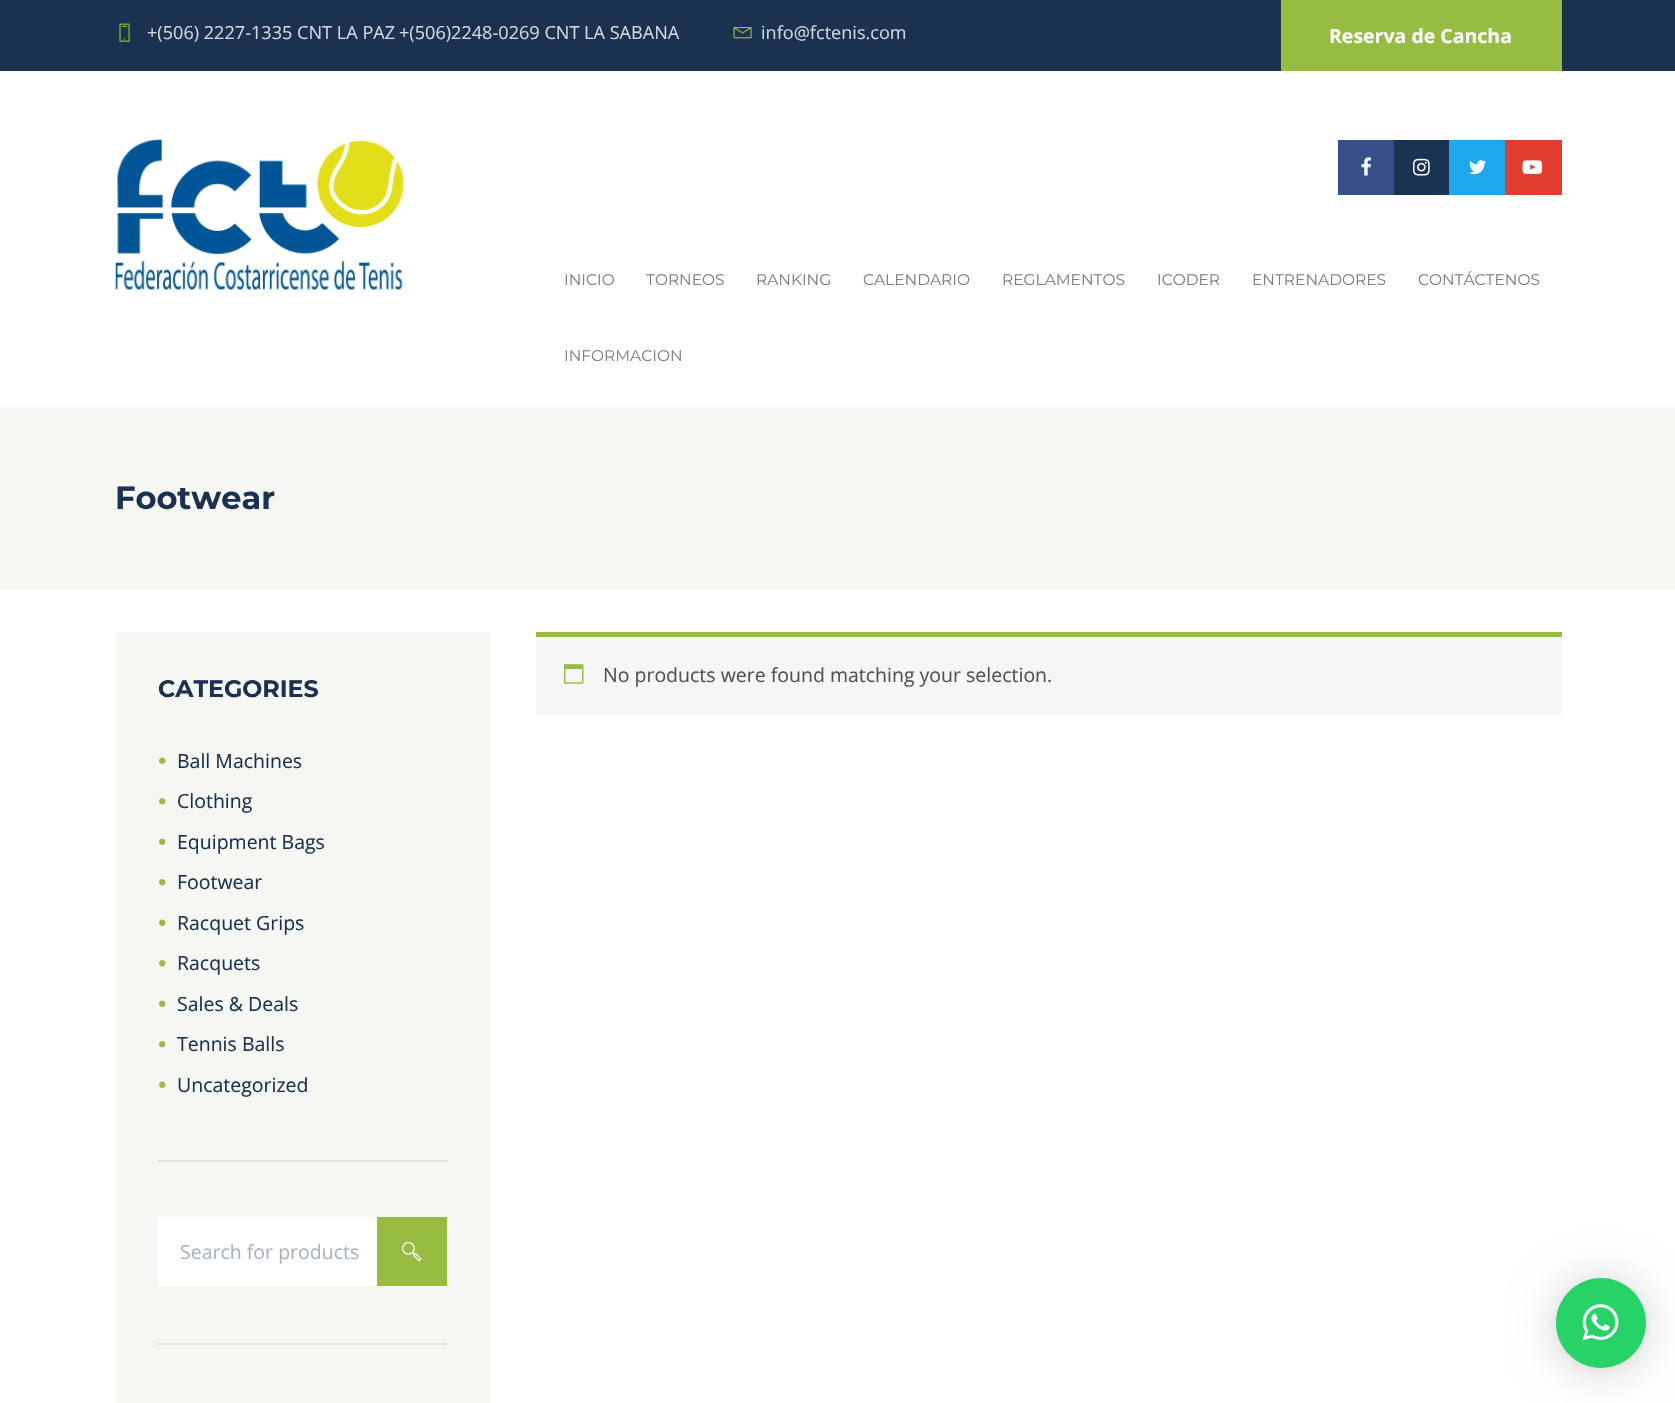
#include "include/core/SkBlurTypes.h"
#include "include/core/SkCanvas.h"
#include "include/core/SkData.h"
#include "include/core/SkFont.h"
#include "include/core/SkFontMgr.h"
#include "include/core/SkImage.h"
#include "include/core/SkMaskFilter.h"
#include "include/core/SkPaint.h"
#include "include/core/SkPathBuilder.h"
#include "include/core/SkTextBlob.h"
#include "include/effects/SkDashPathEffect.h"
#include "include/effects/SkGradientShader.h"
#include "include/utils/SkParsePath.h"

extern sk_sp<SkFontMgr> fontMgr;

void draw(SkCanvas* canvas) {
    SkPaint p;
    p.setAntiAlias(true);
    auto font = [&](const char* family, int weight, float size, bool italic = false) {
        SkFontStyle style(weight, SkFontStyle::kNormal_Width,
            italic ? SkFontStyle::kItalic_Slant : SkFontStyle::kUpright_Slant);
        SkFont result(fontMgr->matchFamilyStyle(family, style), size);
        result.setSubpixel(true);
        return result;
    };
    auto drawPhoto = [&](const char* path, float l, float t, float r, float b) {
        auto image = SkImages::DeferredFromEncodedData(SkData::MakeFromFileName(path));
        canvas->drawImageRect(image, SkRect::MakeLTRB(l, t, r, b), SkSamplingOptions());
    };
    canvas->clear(0xFFFFFFFF);
    p.setColor(0xFF1A3150);
    canvas->drawRect(SkRect::MakeLTRB(0, 0, 1675, 71), p);
    drawPhoto("media/1.png", 119, 23, 130, 42);
    auto font1 = font("Open Sans", 400, 18.1f);
    p.setColor(0xFFD0D6DE);
    canvas->drawString("+(506) 2227-1335 CNT LA PAZ", 147, 39, font1, p);
    canvas->drawString("+(506)2248-0269 CNT LA SABANA", 399, 39, font1, p);
    drawPhoto("media/2.png", 733, 27, 752, 39);
    canvas->drawString("info@fctenis.com", 761, 39, font1, p);
    p.setColor(0xFF96BD42);
    canvas->drawRect(SkRect::MakeLTRB(1281, 0, 1562, 71), p);
    auto font2 = font("Open Sans", 700, 19.5f);
    p.setColor(0xFFFFFFFF);
    canvas->drawString("Reserva de Cancha", 1329, 43, font2, p);
    drawPhoto("media/3.png", 115, 139, 404, 290);
    p.setColor(0xFF36508A);
    canvas->drawRect(SkRect::MakeLTRB(1338, 140, 1394, 195), p);
    drawPhoto("media/4.png", 1361, 157, 1371, 176);
    p.setColor(0xFF1B3353);
    canvas->drawRect(SkRect::MakeLTRB(1394, 140, 1449, 195), p);
    drawPhoto("media/5.png", 1413, 158, 1430, 176);
    p.setColor(0xFF1CA9EB);
    canvas->drawRect(SkRect::MakeLTRB(1449, 140, 1505, 195), p);
    drawPhoto("media/6.png", 1469, 160, 1486, 175);
    p.setColor(0xFFE13E30);
    canvas->drawRect(SkRect::MakeLTRB(1505, 140, 1562, 195), p);
    drawPhoto("media/7.png", 1522, 160, 1542, 175);
    auto font3 = font("Montserrat", 400, 15.5f);
    p.setColor(0xFF7A7F87);
    {
        const struct { const char* s; float x, y; } items[] = {
            {"INICIO", 564, 285},
            {"TORNEOS", 646, 285},
            {"RANKING", 756, 285},
            {"CALENDARIO", 863, 285},
            {"REGLAMENTOS", 1002, 285},
            {"ICODER", 1157, 285},
            {"ENTRENADORES", 1252, 285},
            {"CONTÁCTENOS", 1418, 285},
            {"INFORMACION", 564, 361},
        };
        for (auto [s, x, y] : items) {
            canvas->drawString(s, x, y, font3, p);
        }
    }
    p.setColor(0xFFF6F7F3);
    canvas->drawRect(SkRect::MakeLTRB(0, 407, 1675, 590), p);
    auto font4 = font("Montserrat", 700, 32);
    p.setColor(0xFF1A3150);
    canvas->drawString("Footwear", 115, 509, font4, p);
    p.setColor(0xFFF7F6F7);
    canvas->drawRect(SkRect::MakeLTRB(536, 637, 1562, 714), p);
    p.setColor(0xFF96BD42);
    canvas->drawRect(SkRect::MakeLTRB(536, 632, 1562, 637), p);
    drawPhoto("media/8.png", 564, 664, 584, 684);
    auto font5 = font("Open Sans", 400, 19.5f);
    p.setColor(0xFF515151);
    canvas->drawString("No products were found matching your selection.", 603, 682, font5, p);
    p.setColor(0xFFF6F7F3);
    canvas->drawRect(SkRect::MakeLTRB(116, 632, 491, 1403), p);
    auto font6 = font("Montserrat", 700, 23.75f);
    p.setColor(0xFF1A3150);
    canvas->drawString("CATEGORIES", 158, 697, font6, p);
    drawPhoto("media/9.png", 159, 757, 166, 764);
    canvas->drawString("Ball Machines", 177, 768, font5, p);
    drawPhoto("media/10.png", 159, 798, 166, 805);
    canvas->drawString("Clothing", 177, 808, font5, p);
    drawPhoto("media/9.png", 159, 838, 166, 845);
    canvas->drawString("Equipment Bags", 177, 849, font5, p);
    drawPhoto("media/10.png", 159, 879, 166, 886);
    canvas->drawString("Footwear", 177, 889, font5, p);
    drawPhoto("media/9.png", 159, 919, 166, 926);
    canvas->drawString("Racquet Grips", 177, 930, font5, p);
    drawPhoto("media/10.png", 159, 960, 166, 967);
    canvas->drawString("Racquets", 177, 970, font5, p);
    drawPhoto("media/9.png", 159, 1000, 166, 1007);
    canvas->drawString("Sales & Deals", 177, 1011, font5, p);
    drawPhoto("media/10.png", 159, 1041, 166, 1048);
    canvas->drawString("Tennis Balls", 177, 1051, font5, p);
    drawPhoto("media/9.png", 159, 1081, 166, 1088);
    canvas->drawString("Uncategorized", 177, 1092, font5, p);
    p.setColor(0xFFE1E2E0);
    canvas->drawRect(SkRect::MakeLTRB(158, 1160, 447, 1162), p);
    p.setColor(0xFFFFFFFF);
    canvas->drawRect(SkRect::MakeLTRB(158, 1217, 377, 1286), p);
    p.setColor(0xFFAAB2BD);
    canvas->drawString("Search for products", 180, 1259, font5, p);
    p.setColor(0xFF96BD42);
    canvas->drawRect(SkRect::MakeLTRB(377, 1217, 447, 1286), p);
    drawPhoto("media/11.png", 402, 1241, 422, 1262);
    p.setColor(0xFFE1E2E0);
    canvas->drawRect(SkRect::MakeLTRB(158, 1343, 447, 1345), p);
    p.setColor(0x29000000);
    p.setMaskFilter(SkMaskFilter::MakeBlur(kNormal_SkBlurStyle, 24));
    canvas->drawRoundRect(SkRect::MakeLTRB(1556, 1281, 1646, 1371), 45, 45, p);
    p.setMaskFilter(nullptr);
    p.setColor(0x0F000000);
    p.setMaskFilter(SkMaskFilter::MakeBlur(kNormal_SkBlurStyle, 4.5f));
    canvas->drawRoundRect(SkRect::MakeLTRB(1556, 1280, 1646, 1370), 45, 45, p);
    p.setMaskFilter(nullptr);
    p.setColor(0xFF25D366);
    canvas->drawCircle(1601, 1323, 45, p);
    drawPhoto("media/12.png", 1582, 1304, 1619, 1341);
}
